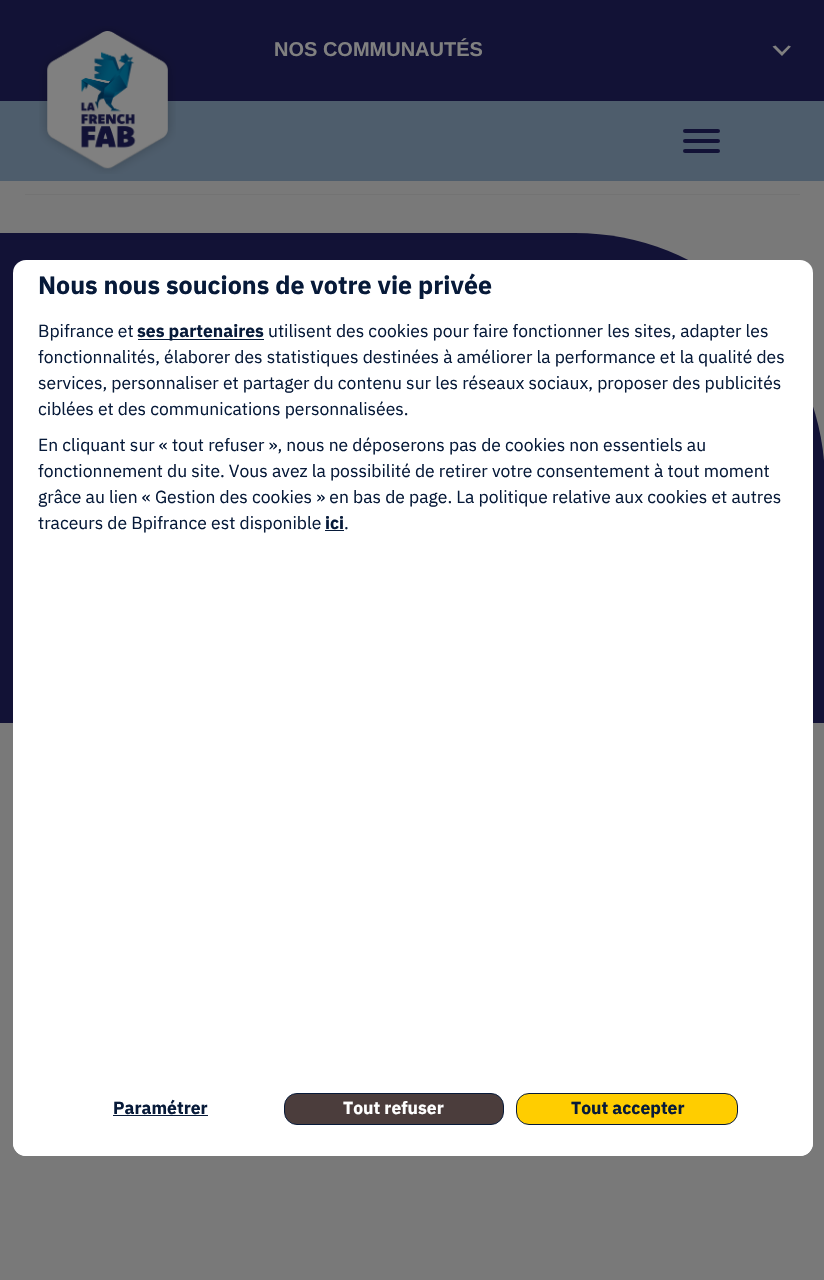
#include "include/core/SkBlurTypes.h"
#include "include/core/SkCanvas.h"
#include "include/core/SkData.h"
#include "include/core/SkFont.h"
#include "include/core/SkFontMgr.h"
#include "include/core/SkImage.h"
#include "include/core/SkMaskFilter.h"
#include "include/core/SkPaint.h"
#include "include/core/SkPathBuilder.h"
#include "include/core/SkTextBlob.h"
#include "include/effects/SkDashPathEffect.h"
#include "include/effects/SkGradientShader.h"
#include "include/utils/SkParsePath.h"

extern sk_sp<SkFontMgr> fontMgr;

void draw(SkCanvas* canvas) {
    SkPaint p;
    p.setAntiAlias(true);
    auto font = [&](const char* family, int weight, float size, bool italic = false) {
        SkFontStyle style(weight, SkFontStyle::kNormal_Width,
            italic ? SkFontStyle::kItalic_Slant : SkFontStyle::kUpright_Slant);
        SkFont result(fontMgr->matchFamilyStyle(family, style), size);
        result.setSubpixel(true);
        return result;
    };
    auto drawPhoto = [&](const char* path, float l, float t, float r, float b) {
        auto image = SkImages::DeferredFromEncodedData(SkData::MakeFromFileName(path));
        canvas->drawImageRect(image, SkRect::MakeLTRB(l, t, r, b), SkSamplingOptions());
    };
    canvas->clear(0xFF797979);
    p.setColor(0xFF4E5D6C);
    canvas->drawRect(SkRect::MakeLTRB(0, 101, 824, 181), p);
    p.setColor(0xFF121236);
    canvas->drawRect(SkRect::MakeLTRB(0, 0, 824, 101), p);
    drawPhoto("media/1.png", 39, 26, 176, 174);
    canvas->drawRoundRect(SkRect::MakeLTRB(683, 139, 720, 143), 2, 2, p);
    canvas->drawRoundRect(SkRect::MakeLTRB(683, 129, 720, 133), 2, 2, p);
    canvas->drawRoundRect(SkRect::MakeLTRB(683, 149, 720, 153), 2, 2, p);
    auto font1 = font("Liberation Sans", 700, 20);
    p.setColor(0xFF808080);
    canvas->drawString("NOS COMMUNAUTÉS", 274, 56, font1, p);
    canvas->drawPath(SkPathBuilder().moveTo(775.5f, 45.5f).lineTo(782, 52).lineTo(788.5f, 45.5f).lineTo(791, 46.5f).lineTo(782, 56).lineTo(772.5f, 46.5f).close().detach(), p);
    p.setColor(0xFF737373);
    canvas->drawRect(SkRect::MakeLTRB(25, 194, 800, 195), p);
    p.setColor(0xFF121236);
    canvas->drawPath(SkPathBuilder().moveTo(0, 233).lineTo(575, 233).cubicTo(713, 233, 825, 345, 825, 483).lineTo(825, 723).lineTo(0, 723).close().detach(), p);
    p.setColor(0xFFFFFFFF);
    canvas->drawRoundRect(SkRect::MakeLTRB(13, 260, 813, 1156), 13, 13, p);
    auto font2 = font("IBM Plex Sans", 700, 25);
    p.setColor(0xFF071A39);
    canvas->drawString("Nous nous soucions de votre vie privée", 38, 294, font2, p);
    auto font3 = font("IBM Plex Sans", 400, 17.5f);
    canvas->drawString("Bpifrance et", 38, 337, font3, p);
    canvas->drawRect(SkRect::MakeLTRB(138, 339, 264, 340), p);
    auto font4 = font("IBM Plex Sans", 700, 17.5f);
    canvas->drawString("ses partenaires", 137, 337, font4, p);
    {
        const struct { const char* s; float x, y; } items[] = {
            {"utilisent des cookies pour faire fonctionner les sites, adapter les", 268, 337},
            {"fonctionnalités, élaborer des statistiques destinées à améliorer la performance et la qualité des", 38, 363},
            {"services, personnaliser et partager du contenu sur les réseaux sociaux, proposer des publicités", 38, 389},
            {"ciblées et des communications personnalisées.", 38, 415},
            {"En cliquant sur « tout refuser », nous ne déposerons pas de cookies non essentiels au", 38, 451},
            {"fonctionnement du site. Vous avez la possibilité de retirer votre consentement à tout moment", 38, 477},
            {"grâce au lien « Gestion des cookies » en bas de page. La politique relative aux cookies et autres", 38, 503},
            {"traceurs de Bpifrance est disponible", 38, 529},
        };
        for (auto [s, x, y] : items) {
            canvas->drawString(s, x, y, font3, p);
        }
    }
    canvas->drawString("ici", 325, 529, font4, p);
    canvas->drawRect(SkRect::MakeLTRB(325, 530, 344, 531), p);
    canvas->drawString(".", 344, 529, font3, p);
    {
        const SkColor colors[] = {0xFFFFFFFF, 0x00FFFFFF};
        const float stops[] = {0.6f, 1};
        const SkPoint ends[] = {{413, 1156}, {413, 1086}};
        p.setShader(SkGradientShader::MakeLinear(ends, colors, stops, 2, SkTileMode::kClamp));
        p.setAlpha(255);
    }
    canvas->drawPath(SkPathBuilder().moveTo(13, 1086).lineTo(813, 1086).lineTo(813, 1143).cubicTo(813, 1150, 807, 1156, 800, 1156).lineTo(26, 1156).cubicTo(19, 1156, 13, 1150, 13, 1143).close().detach(), p);
    p.setShader(nullptr);
    p.setColor(0xFF071A39);
    canvas->drawString("Paramétrer", 113, 1114, font4, p);
    canvas->drawRect(SkRect::MakeLTRB(113, 1115, 208, 1116), p);
    p.setColor(0xFF4B3D3C);
    canvas->drawRoundRect(SkRect::MakeLTRB(284.5f, 1093.5f, 503.5f, 1124.5f), 12.5f, 12.5f, p);
    p.setStyle(SkPaint::kStroke_Style);
    p.setStrokeWidth(1);
    p.setColor(0xFF071A39);
    canvas->drawRoundRect(SkRect::MakeLTRB(284.5f, 1093.5f, 503.5f, 1124.5f), 12.5f, 12.5f, p);
    p.setStyle(SkPaint::kFill_Style);
    p.setColor(0xFFFFFFFF);
    canvas->drawString("Tout refuser", 343, 1114, font4, p);
    p.setColor(0xFFFFCD00);
    canvas->drawRoundRect(SkRect::MakeLTRB(516.5f, 1093.5f, 737.5f, 1124.5f), 12.5f, 12.5f, p);
    p.setStyle(SkPaint::kStroke_Style);
    p.setColor(0xFF071A39);
    canvas->drawRoundRect(SkRect::MakeLTRB(516.5f, 1093.5f, 737.5f, 1124.5f), 12.5f, 12.5f, p);
    p.setStyle(SkPaint::kFill_Style);
    canvas->drawString("Tout accepter", 571, 1114, font4, p);
}
